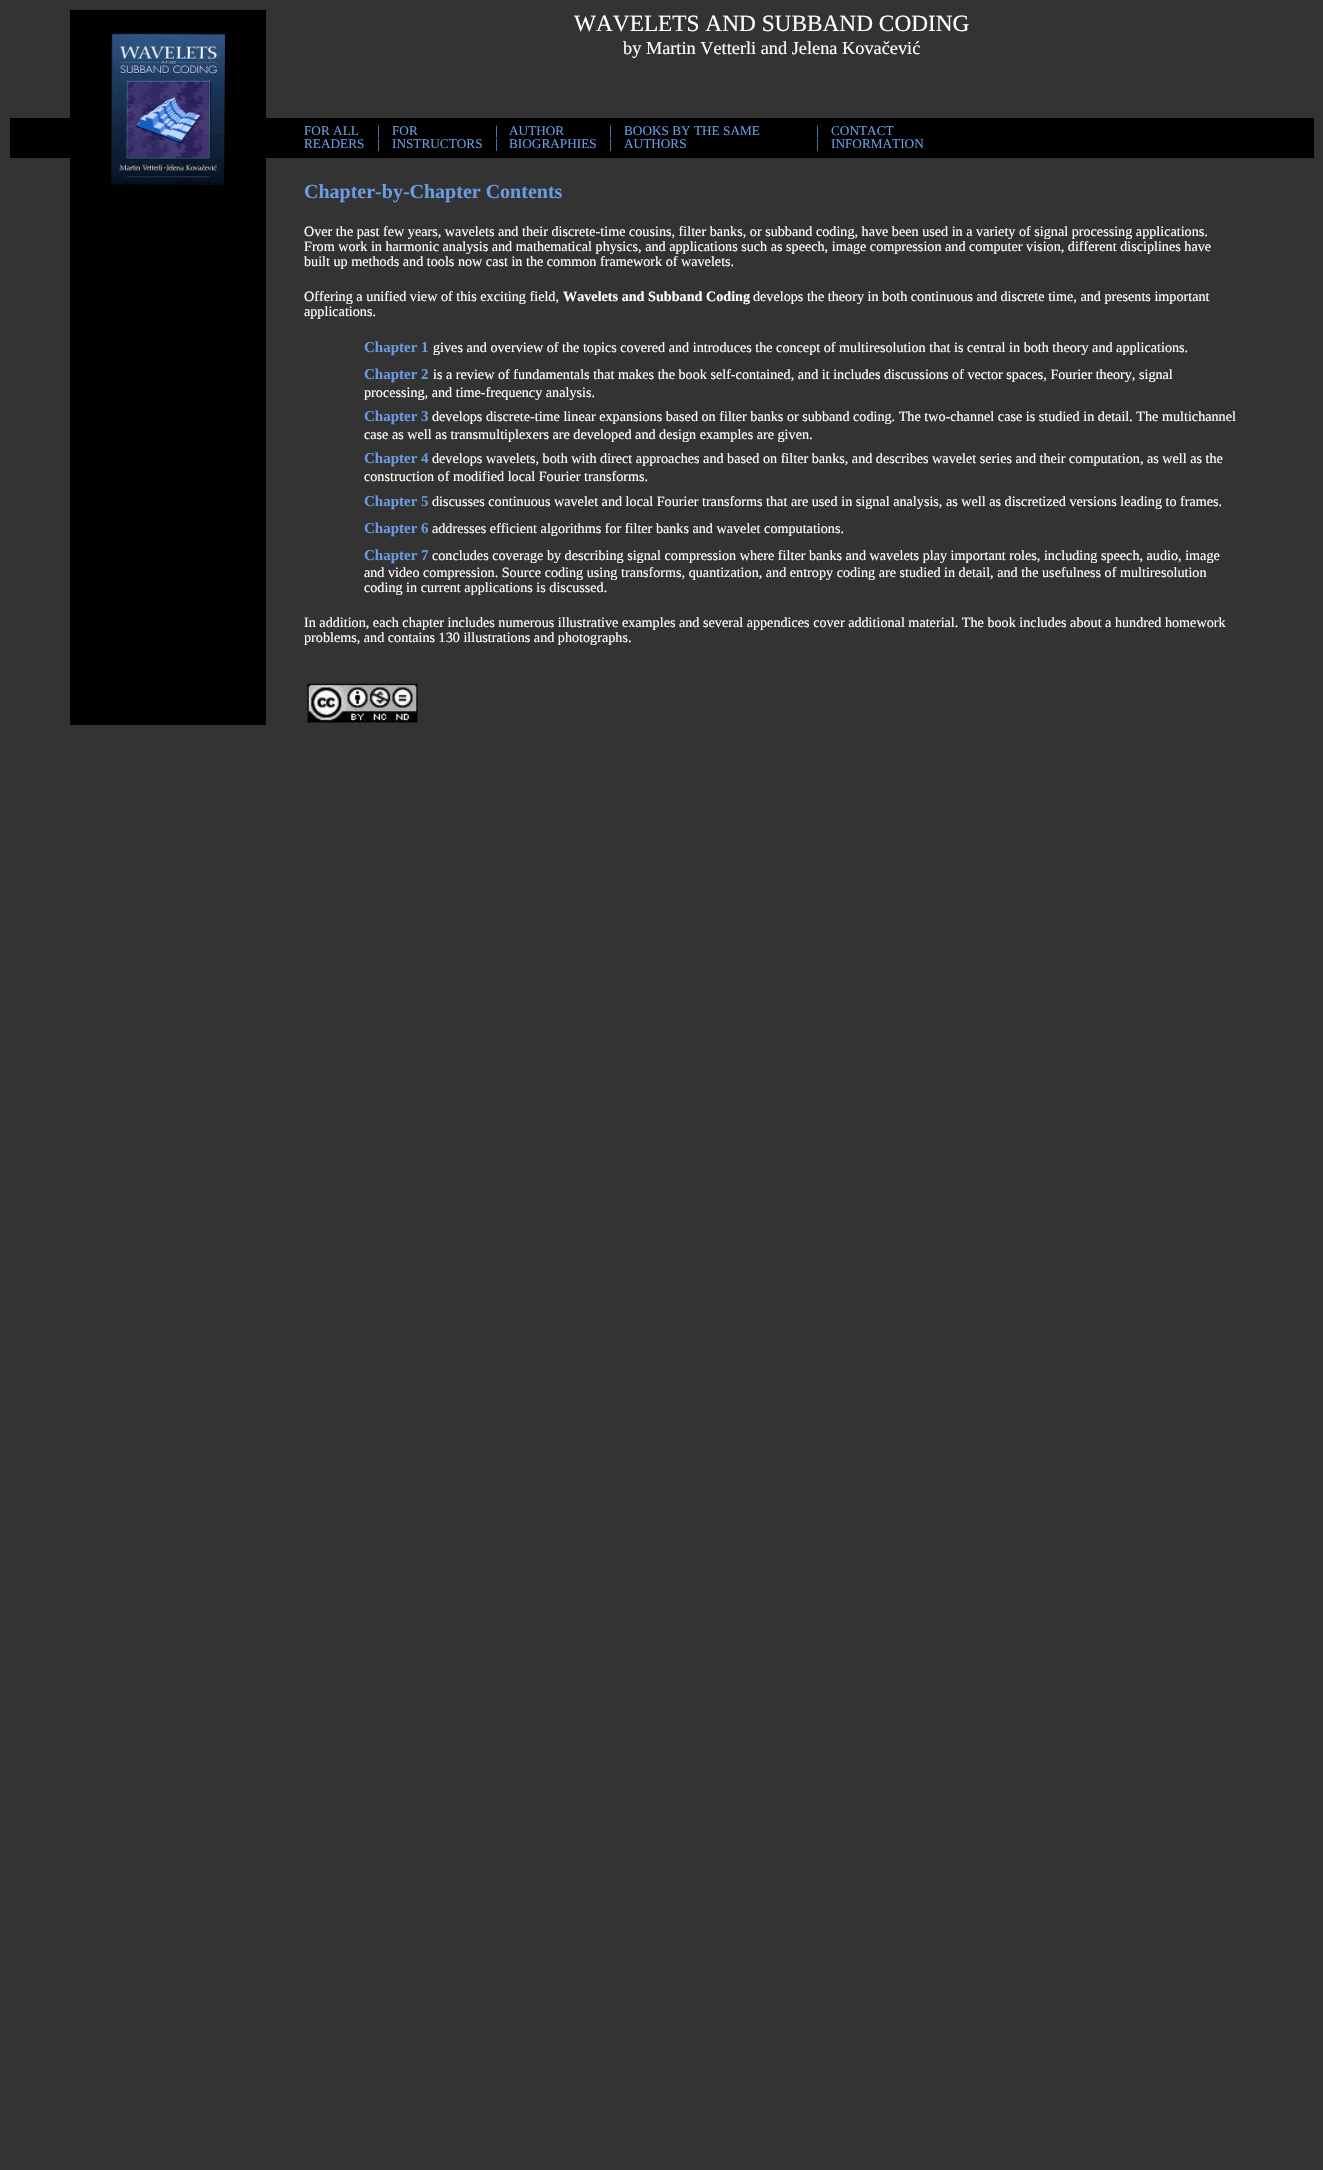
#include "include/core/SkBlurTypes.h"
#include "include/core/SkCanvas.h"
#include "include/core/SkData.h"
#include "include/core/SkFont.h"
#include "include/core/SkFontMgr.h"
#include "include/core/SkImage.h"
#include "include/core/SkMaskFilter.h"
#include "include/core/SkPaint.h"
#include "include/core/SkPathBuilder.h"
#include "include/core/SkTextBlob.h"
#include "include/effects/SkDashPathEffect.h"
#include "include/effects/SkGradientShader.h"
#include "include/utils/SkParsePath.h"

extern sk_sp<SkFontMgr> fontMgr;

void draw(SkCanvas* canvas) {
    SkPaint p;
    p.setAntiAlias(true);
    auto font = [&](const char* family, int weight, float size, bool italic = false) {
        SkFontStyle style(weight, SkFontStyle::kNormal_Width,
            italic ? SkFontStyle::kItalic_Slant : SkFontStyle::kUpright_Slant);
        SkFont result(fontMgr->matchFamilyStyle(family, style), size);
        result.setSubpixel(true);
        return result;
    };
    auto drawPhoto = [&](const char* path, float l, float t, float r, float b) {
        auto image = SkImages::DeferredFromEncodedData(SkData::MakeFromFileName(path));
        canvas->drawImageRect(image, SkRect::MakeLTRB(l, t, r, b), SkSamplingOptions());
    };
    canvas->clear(0xFF333333);
    p.setColor(0xFF000000);
    canvas->drawRect(SkRect::MakeLTRB(70, 10, 266, 725), p);
    drawPhoto("media/1.png", 111, 33, 225, 185);
    auto font1 = font("Liberation Serif", 400, 23.3f);
    p.setColor(0xFFFFFFFF);
    canvas->drawString("WAVELETS AND SUBBAND CODING", 574, 31, font1, p);
    auto font2 = font("Liberation Serif", 400, 18.3f);
    canvas->drawString("by Martin Vetterli and Jelena Kovačević", 623, 54, font2, p);
    p.setColor(0xFF000000);
    canvas->drawRect(SkRect::MakeLTRB(10, 118, 70, 158), p);
    canvas->drawRect(SkRect::MakeLTRB(266, 118, 1314, 158), p);
    auto font3 = font("Liberation Serif", 400, 13.25f);
    p.setColor(0xFF6A9AE0);
    {
        const struct { const char* s; float x, y; } items[] = {
            {"FOR ALL", 304, 135},
            {"READERS", 304, 148},
            {"|", 377, 135},
            {"|", 377, 148},
            {"FOR", 392, 135},
            {"INSTRUCTORS", 392, 148},
            {"|", 495, 135},
            {"|", 495, 148},
            {"AUTHOR", 509, 135},
            {"BIOGRAPHIES", 509, 148},
            {"|", 609, 135},
            {"|", 609, 148},
            {"BOOKS BY THE SAME", 624, 135},
            {"AUTHORS", 624, 148},
            {"|", 816, 135},
            {"|", 816, 148},
            {"CONTACT", 831, 135},
            {"INFORMATION", 831, 148},
        };
        for (auto [s, x, y] : items) {
            canvas->drawString(s, x, y, font3, p);
        }
    }
    auto font4 = font("Liberation Serif", 700, 20);
    canvas->drawString("Chapter-by-Chapter Contents", 304, 198, font4, p);
    auto font5 = font("Liberation Serif", 400, 14.17f);
    p.setColor(0xFFFFFFFF);
    {
        const struct { const char* s; float x, y; } items[] = {
            {"Over the past few years, wavelets and their discrete-time cousins, filter banks, or subband coding, have been used in a variety of signal processing applications.", 304, 236},
            {"From work in harmonic analysis and mathematical physics, and applications such as speech, image compression and computer vision, different disciplines have", 304, 251},
            {"built up methods and tools now cast in the common framework of wavelets.", 304, 266},
            {"Offering a unified view of this exciting field,", 304, 301},
        };
        for (auto [s, x, y] : items) {
            canvas->drawString(s, x, y, font5, p);
        }
    }
    auto font6 = font("Liberation Serif", 700, 14.17f);
    canvas->drawString("Wavelets and Subband Coding", 563, 301, font6, p);
    canvas->drawString("develops the theory in both continuous and discrete time, and presents important", 753, 301, font5, p);
    canvas->drawString("applications.", 304, 316, font5, p);
    auto font7 = font("Liberation Serif", 700, 15);
    p.setColor(0xFF6A9AE0);
    canvas->drawString("Chapter 1", 364, 352, font7, p);
    p.setColor(0xFFFFFFFF);
    canvas->drawString("gives and overview of the topics covered and introduces the concept of multiresolution that is central in both theory and applications.", 433, 352, font5, p);
    p.setColor(0xFF6A9AE0);
    canvas->drawString("Chapter 2", 364, 379, font7, p);
    p.setColor(0xFFFFFFFF);
    canvas->drawString("is a review of fundamentals that makes the book self-contained, and it includes discussions of vector spaces, Fourier theory, signal", 433, 379, font5, p);
    canvas->drawString("processing, and time-frequency analysis.", 364, 397, font5, p);
    p.setColor(0xFF6A9AE0);
    canvas->drawString("Chapter 3", 364, 421, font7, p);
    p.setColor(0xFFFFFFFF);
    canvas->drawString("develops discrete-time linear expansions based on filter banks or subband coding. The two-channel case is studied in detail. The multichannel", 432, 421, font5, p);
    canvas->drawString("case as well as transmultiplexers are developed and design examples are given.", 364, 439, font5, p);
    p.setColor(0xFF6A9AE0);
    canvas->drawString("Chapter 4", 364, 463, font7, p);
    p.setColor(0xFFFFFFFF);
    canvas->drawString("develops wavelets, both with direct approaches and based on filter banks, and describes wavelet series and their computation, as well as the", 432, 463, font5, p);
    canvas->drawString("construction of modified local Fourier transforms.", 364, 481, font5, p);
    p.setColor(0xFF6A9AE0);
    canvas->drawString("Chapter 5", 364, 506, font7, p);
    p.setColor(0xFFFFFFFF);
    canvas->drawString("discusses continuous wavelet and local Fourier transforms that are used in signal analysis, as well as discretized versions leading to frames.", 432, 506, font5, p);
    p.setColor(0xFF6A9AE0);
    canvas->drawString("Chapter 6", 364, 533, font7, p);
    p.setColor(0xFFFFFFFF);
    canvas->drawString("addresses efficient algorithms for filter banks and wavelet computations.", 432, 533, font5, p);
    p.setColor(0xFF6A9AE0);
    canvas->drawString("Chapter 7", 364, 560, font7, p);
    p.setColor(0xFFFFFFFF);
    {
        const struct { const char* s; float x, y; } items[] = {
            {"concludes coverage by describing signal compression where filter banks and wavelets play important roles, including speech, audio, image", 432, 560},
            {"and video compression. Source coding using transforms, quantization, and entropy coding are studied in detail, and the usefulness of multiresolution", 364, 577},
            {"coding in current applications is discussed.", 364, 592},
            {"In addition, each chapter includes numerous illustrative examples and several appendices cover additional material. The book includes about a hundred homework", 304, 627},
            {"problems, and contains 130 illustrations and photographs.", 304, 642},
        };
        for (auto [s, x, y] : items) {
            canvas->drawString(s, x, y, font5, p);
        }
    }
    drawPhoto("media/2.png", 307, 683, 418, 723);
}
